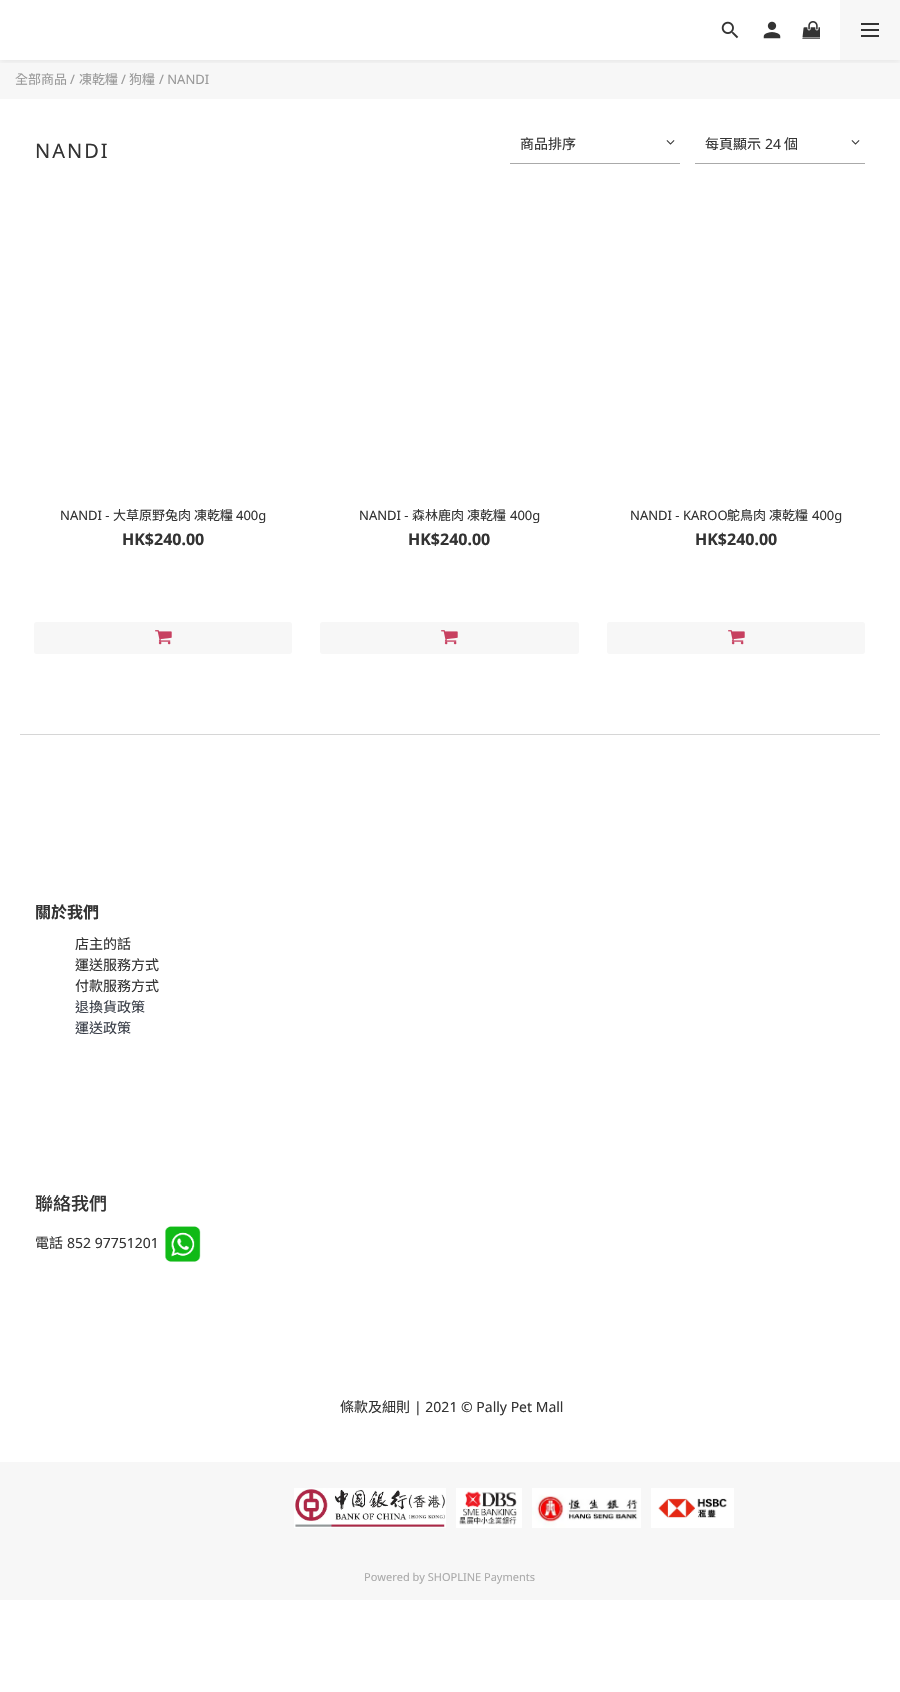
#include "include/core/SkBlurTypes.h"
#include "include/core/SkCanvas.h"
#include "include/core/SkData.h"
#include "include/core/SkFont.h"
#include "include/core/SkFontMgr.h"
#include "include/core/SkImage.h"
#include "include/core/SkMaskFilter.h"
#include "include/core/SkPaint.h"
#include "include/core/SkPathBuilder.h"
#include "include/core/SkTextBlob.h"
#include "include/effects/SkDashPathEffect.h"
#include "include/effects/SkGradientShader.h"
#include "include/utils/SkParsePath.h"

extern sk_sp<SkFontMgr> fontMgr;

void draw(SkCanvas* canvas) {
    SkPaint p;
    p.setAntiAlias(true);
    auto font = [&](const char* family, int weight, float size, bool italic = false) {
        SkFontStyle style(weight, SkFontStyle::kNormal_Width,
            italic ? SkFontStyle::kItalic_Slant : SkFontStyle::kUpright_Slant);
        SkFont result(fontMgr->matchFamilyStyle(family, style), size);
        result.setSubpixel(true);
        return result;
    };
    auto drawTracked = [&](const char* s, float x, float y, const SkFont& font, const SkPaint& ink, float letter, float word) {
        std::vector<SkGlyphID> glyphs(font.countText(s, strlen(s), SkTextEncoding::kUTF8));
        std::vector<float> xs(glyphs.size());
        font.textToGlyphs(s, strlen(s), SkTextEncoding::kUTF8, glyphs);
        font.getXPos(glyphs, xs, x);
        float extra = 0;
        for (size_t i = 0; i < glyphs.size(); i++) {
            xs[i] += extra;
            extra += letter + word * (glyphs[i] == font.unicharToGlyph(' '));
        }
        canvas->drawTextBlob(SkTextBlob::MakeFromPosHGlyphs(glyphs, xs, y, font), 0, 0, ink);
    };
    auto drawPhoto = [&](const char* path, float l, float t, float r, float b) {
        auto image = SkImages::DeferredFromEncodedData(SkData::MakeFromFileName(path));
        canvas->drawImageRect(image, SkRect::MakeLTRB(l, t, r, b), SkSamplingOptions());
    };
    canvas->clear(0xFFFFFFFF);
    p.setColor(0xFFF7F7F7);
    canvas->drawRect(SkRect::MakeLTRB(0, 60, 900, 99), p);
    canvas->save();
    canvas->clipRect(SkRect::MakeLTRB(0, 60, 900, 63));
    p.setColor(0x0F000000);
    p.setMaskFilter(SkMaskFilter::MakeBlur(kNormal_SkBlurStyle, 3));
    canvas->drawRect(SkRect::MakeLTRB(0, 2, 900, 62), p);
    p.setMaskFilter(nullptr);
    canvas->restore();
    drawPhoto("media/1.png", 721, 21, 739, 39);
    drawPhoto("media/2.png", 763, 21, 781, 39);
    drawPhoto("media/3.png", 802, 21, 820, 39);
    {
        const struct { float l, t, r, b; SkColor color; } items[] = {
            {840, 0, 900, 60, 0xFFF7F7F7},
            {861, 29, 879, 31, 0xFF333333},
            {861, 23, 879, 25, 0xFF333333},
            {861, 35, 879, 37, 0xFF333333},
        };
        for (auto [l, t, r, b, color] : items) {
            p.setColor(color);
            canvas->drawRect(SkRect::MakeLTRB(l, t, r, b), p);
        }
    }
    auto font1 = font("Noto Sans TC", 400, 13);
    p.setColor(0xFF999999);
    canvas->drawString("全部商品", 15, 84, font1, p);
    auto font2 = font("Noto Sans", 400, 13);
    canvas->drawString("/", 70, 84, font2, p);
    canvas->drawString("凍乾糧", 79, 84, font1, p);
    canvas->drawString("/", 121, 84, font2, p);
    canvas->drawString("狗糧", 129, 84, font1, p);
    canvas->drawString("/ NANDI", 159, 84, font2, p);
    auto font3 = font("Noto Sans", 400, 20);
    p.setColor(0xFF333333);
    drawTracked("NANDI", 35, 158, font3, p, 2, 0);
    auto font4 = font("Noto Sans TC", 400, 14);
    canvas->drawString("商品排序", 520, 149, font4, p);
    p.setColor(0xFFAAAAAA);
    canvas->drawRect(SkRect::MakeLTRB(510, 163, 680, 164), p);
    drawPhoto("media/4.png", 666, 140, 675, 145);
    p.setColor(0xFF333333);
    canvas->drawString("每頁顯示", 705, 149, font4, p);
    auto font5 = font("Noto Sans", 400, 14);
    canvas->drawString("24", 765, 149, font5, p);
    canvas->drawString("個", 784, 149, font4, p);
    p.setColor(0xFFAAAAAA);
    canvas->drawRect(SkRect::MakeLTRB(695, 163, 865, 164), p);
    drawPhoto("media/4.png", 851, 140, 860, 145);
    p.setColor(0xFF333333);
    canvas->drawString("NANDI -", 60, 520, font2, p);
    canvas->drawString("大草原野兔肉", 113, 520, font1, p);
    canvas->drawString("凍乾糧", 194, 520, font1, p);
    canvas->drawString("400g", 236, 520, font2, p);
    auto font6 = font("Noto Sans", 700, 16);
    canvas->drawString("HK$240.00", 122, 545, font6, p);
    p.setColor(0xFFF7F7F7);
    canvas->drawRoundRect(SkRect::MakeLTRB(34, 622, 292, 654), 3, 3, p);
    drawPhoto("media/5.png", 155, 630, 172, 645);
    p.setColor(0xFF333333);
    canvas->drawString("NANDI -", 359, 520, font2, p);
    canvas->drawString("森林鹿肉 凍乾糧", 412, 520, font1, p);
    canvas->drawString("400g", 510, 520, font2, p);
    canvas->drawString("HK$240.00", 408, 545, font6, p);
    p.setColor(0xFFF7F7F7);
    canvas->drawRoundRect(SkRect::MakeLTRB(320, 622, 579, 654), 3, 3, p);
    drawPhoto("media/5.png", 441, 630, 458, 645);
    p.setColor(0xFF333333);
    canvas->drawString("NANDI - KAROO", 630, 520, font2, p);
    canvas->drawString("鴕鳥肉 凍乾糧", 727, 520, font1, p);
    canvas->drawString("400g", 812, 520, font2, p);
    canvas->drawString("HK$240.00", 695, 545, font6, p);
    p.setColor(0xFFF7F7F7);
    canvas->drawRoundRect(SkRect::MakeLTRB(607, 622, 865, 654), 3, 3, p);
    drawPhoto("media/5.png", 728, 630, 745, 645);
    p.setColor(0xFFD6D6D6);
    canvas->drawRect(SkRect::MakeLTRB(20, 734, 880, 735), p);
    auto font7 = font("Noto Sans TC", 700, 16);
    p.setColor(0xFF333333);
    canvas->drawString("關於我們", 35, 918, font7, p);
    {
        const struct { const char* s; float x, y; } items[] = {
            {"店主的話", 75, 949},
            {"運送服務方式", 75, 970},
            {"付款服務方式", 75, 991},
        };
        for (auto [s, x, y] : items) {
            canvas->drawString(s, x, y, font4, p);
        }
    }
    p.setColor(0xFF393E48);
    canvas->drawString("退換貨政策", 75, 1012, font4, p);
    canvas->drawString("運送政策", 75, 1033, font4, p);
    auto font8 = font("Noto Sans TC", 500, 18);
    p.setColor(0xFF333333);
    canvas->drawString("聯絡我們", 35, 1210, font8, p);
    canvas->drawString("電話", 35, 1248, font4, p);
    canvas->drawString("852 97751201", 67, 1248, font5, p);
    drawPhoto("media/6.png", 165, 1226, 201, 1262);
    canvas->drawString("條款及細則", 340, 1412, font4, p);
    canvas->drawString("| 2021 © Pally Pet Mall", 414, 1412, font5, p);
    p.setColor(0xFFF7F7F7);
    canvas->drawRect(SkRect::MakeLTRB(0, 1462, 900, 1600), p);
    drawPhoto("media/7.png", 294, 1488, 446, 1528);
    drawPhoto("media/8.png", 456, 1488, 522, 1528);
    drawPhoto("media/9.png", 532, 1488, 641, 1528);
    drawPhoto("media/10.png", 651, 1488, 734, 1528);
    auto font9 = font("Noto Sans", 400, 11);
    p.setColor(0xFFAAAAAA);
    canvas->drawString("Powered by SHOPLINE Payments", 364, 1581, font9, p);
}
